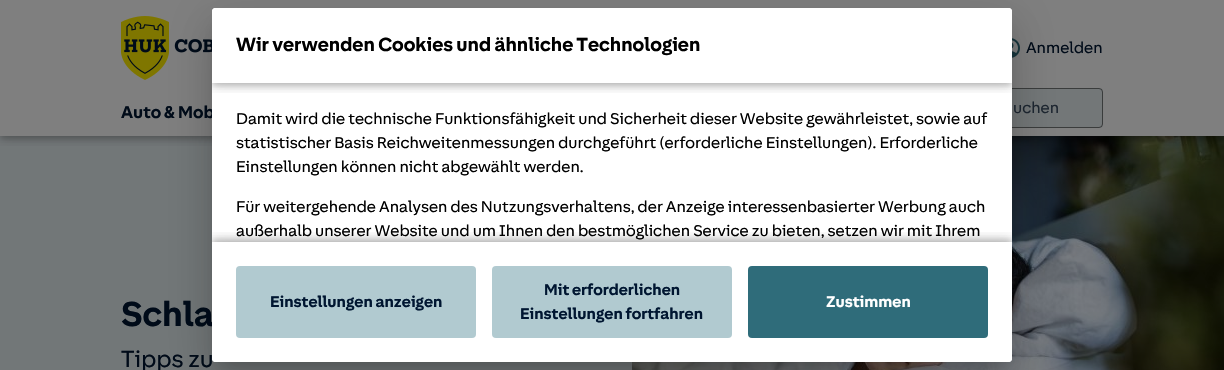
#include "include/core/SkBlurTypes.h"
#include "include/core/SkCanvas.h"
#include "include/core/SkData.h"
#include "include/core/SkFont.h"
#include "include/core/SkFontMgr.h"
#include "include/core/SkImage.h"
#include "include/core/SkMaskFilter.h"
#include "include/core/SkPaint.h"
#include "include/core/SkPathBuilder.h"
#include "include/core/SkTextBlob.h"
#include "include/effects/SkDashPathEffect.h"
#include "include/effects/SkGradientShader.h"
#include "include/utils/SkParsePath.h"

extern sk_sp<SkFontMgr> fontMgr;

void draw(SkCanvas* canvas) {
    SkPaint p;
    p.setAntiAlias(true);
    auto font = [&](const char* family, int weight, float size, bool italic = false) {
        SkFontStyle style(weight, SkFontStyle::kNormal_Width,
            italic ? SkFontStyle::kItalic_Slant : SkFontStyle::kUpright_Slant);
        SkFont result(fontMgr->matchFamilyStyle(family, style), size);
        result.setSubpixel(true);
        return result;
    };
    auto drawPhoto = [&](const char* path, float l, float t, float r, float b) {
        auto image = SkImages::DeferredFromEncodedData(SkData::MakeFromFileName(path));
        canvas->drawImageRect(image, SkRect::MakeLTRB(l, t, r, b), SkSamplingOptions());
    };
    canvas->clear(0xFFFFFFFF);
    p.setColor(0xFFE5EEF1);
    canvas->drawRect(SkRect::MakeLTRB(0, 136, 632, 370), p);
    drawPhoto("media/3.png", 632, 136, 1224, 370);
    canvas->save();
    canvas->clipRect(SkRect::MakeLTRB(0, 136, 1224, 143));
    p.setColor(0x14000000);
    p.setMaskFilter(SkMaskFilter::MakeBlur(kNormal_SkBlurStyle, 9));
    canvas->drawRect(SkRect::MakeLTRB(0, 1, 1224, 137), p);
    p.setMaskFilter(nullptr);
    canvas->restore();
    canvas->save();
    canvas->clipRect(SkRect::MakeLTRB(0, 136, 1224, 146));
    p.setColor(0x1A000000);
    p.setMaskFilter(SkMaskFilter::MakeBlur(kNormal_SkBlurStyle, 5));
    canvas->drawRect(SkRect::MakeLTRB(0, 6, 1224, 142), p);
    p.setMaskFilter(nullptr);
    canvas->restore();
    canvas->save();
    canvas->clipRect(SkRect::MakeLTRB(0, 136, 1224, 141));
    p.setColor(0x29000000);
    p.setMaskFilter(SkMaskFilter::MakeBlur(kNormal_SkBlurStyle, 2.5f));
    canvas->drawRect(SkRect::MakeLTRB(1, 4, 1223, 138), p);
    p.setMaskFilter(nullptr);
    canvas->restore();
    drawPhoto("media/1.png", 121, 16, 212, 80);
    drawPhoto("media/2.png", 1012, 38, 1020, 58);
    auto font1 = font("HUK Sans", 400, 16);
    p.setColor(0xFF001631);
    canvas->drawString("Anmelden", 1026, 53, font1, p);
    auto font2 = font("HUK Sans", 700, 17.5f);
    canvas->drawString("Auto & Mob", 121, 118, font2, p);
    p.setColor(0xFFE7EFF1);
    canvas->drawRoundRect(SkRect::MakeLTRB(859, 88, 1103, 128), 4, 4, p);
    p.setStyle(SkPaint::kStroke_Style);
    p.setStrokeWidth(1);
    p.setColor(0x80000000);
    canvas->drawRoundRect(SkRect::MakeLTRB(859.5f, 88.5f, 1102.5f, 127.5f), 3.5f, 3.5f, p);
    p.setStyle(SkPaint::kFill_Style);
    p.setColor(0xFF3A4C61);
    canvas->drawString("uchen", 1013, 113, font1, p);
    auto font3 = font("HUK Sans", 700, 35.5f);
    p.setColor(0xFF001631);
    canvas->drawString("Schla", 121, 326, font3, p);
    auto font4 = font("HUK Sans", 400, 24);
    canvas->drawString("Tipps zu", 121, 367, font4, p);
    p.setStyle(SkPaint::kStroke_Style);
    p.setStrokeWidth(1224);
    p.setColor(0x80000000);
    canvas->drawRoundRect(SkRect::MakeLTRB(-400, -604, 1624, 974), 616, 616, p);
    p.setStyle(SkPaint::kFill_Style);
    p.setColor(0x14000000);
    p.setMaskFilter(SkMaskFilter::MakeBlur(kNormal_SkBlurStyle, 23));
    canvas->drawRoundRect(SkRect::MakeLTRB(204, 9, 1020, 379), 12, 12, p);
    p.setMaskFilter(nullptr);
    p.setColor(0x1A000000);
    p.setMaskFilter(SkMaskFilter::MakeBlur(kNormal_SkBlurStyle, 19));
    canvas->drawRoundRect(SkRect::MakeLTRB(209, 29, 1015, 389), 7, 7, p);
    p.setMaskFilter(nullptr);
    p.setColor(0x29000000);
    p.setMaskFilter(SkMaskFilter::MakeBlur(kNormal_SkBlurStyle, 7.5f));
    canvas->drawRect(SkRect::MakeLTRB(219, 26, 1005, 366), p);
    p.setMaskFilter(nullptr);
    p.setColor(0xFFFFFFFF);
    canvas->drawRoundRect(SkRect::MakeLTRB(212, 8, 1012, 362), 4, 4, p);
    canvas->drawRoundRect(SkRect::MakeLTRB(212, 8, 1012, 83), 4, 4, p);
    canvas->save();
    canvas->clipPath(SkPathBuilder().moveTo(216, 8).lineTo(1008, 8).cubicTo(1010, 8, 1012, 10, 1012, 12).lineTo(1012, 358).cubicTo(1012, 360, 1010, 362, 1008, 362).lineTo(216, 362).cubicTo(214, 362, 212, 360, 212, 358).lineTo(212, 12).cubicTo(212, 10, 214, 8, 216, 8).close().detach(), true);
    canvas->clipRect(SkRect::MakeLTRB(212, 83, 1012, 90));
    p.setColor(0x14000000);
    p.setMaskFilter(SkMaskFilter::MakeBlur(kNormal_SkBlurStyle, 9));
    canvas->drawRect(SkRect::MakeLTRB(212, 9, 1012, 84), p);
    p.setMaskFilter(nullptr);
    canvas->restore();
    canvas->save();
    canvas->clipPath(SkPathBuilder().moveTo(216, 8).lineTo(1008, 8).cubicTo(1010, 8, 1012, 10, 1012, 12).lineTo(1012, 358).cubicTo(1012, 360, 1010, 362, 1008, 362).lineTo(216, 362).cubicTo(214, 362, 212, 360, 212, 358).lineTo(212, 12).cubicTo(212, 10, 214, 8, 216, 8).close().detach(), true);
    canvas->clipRect(SkRect::MakeLTRB(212, 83, 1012, 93));
    p.setColor(0x1A000000);
    p.setMaskFilter(SkMaskFilter::MakeBlur(kNormal_SkBlurStyle, 5));
    canvas->drawRect(SkRect::MakeLTRB(212, 14, 1012, 89), p);
    p.setMaskFilter(nullptr);
    canvas->restore();
    canvas->save();
    canvas->clipPath(SkPathBuilder().moveTo(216, 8).lineTo(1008, 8).cubicTo(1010, 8, 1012, 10, 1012, 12).lineTo(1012, 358).cubicTo(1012, 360, 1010, 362, 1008, 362).lineTo(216, 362).cubicTo(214, 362, 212, 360, 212, 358).lineTo(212, 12).cubicTo(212, 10, 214, 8, 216, 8).close().detach(), true);
    canvas->clipRect(SkRect::MakeLTRB(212, 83, 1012, 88));
    p.setColor(0x29000000);
    p.setMaskFilter(SkMaskFilter::MakeBlur(kNormal_SkBlurStyle, 2.5f));
    canvas->drawRect(SkRect::MakeLTRB(213, 12, 1011, 85), p);
    p.setMaskFilter(nullptr);
    canvas->restore();
    auto font5 = font("HUK Sans", 700, 19.5f);
    p.setColor(0xFF000000);
    canvas->drawString("Wir verwenden Cookies und ähnliche Technologien", 236, 51, font5, p);
    {
        const struct { const char* s; float x, y; } items[] = {
            {"Damit wird die technische Funktionsfähigkeit und Sicherheit dieser Website gewährleistet, sowie auf", 236, 124},
            {"statistischer Basis Reichweitenmessungen durchgeführt (erforderliche Einstellungen). Erforderliche", 236, 148},
            {"Einstellungen können nicht abgewählt werden.", 236, 172},
            {"Für weitergehende Analysen des Nutzungsverhaltens, der Anzeige interessenbasierter Werbung auch", 236, 212},
            {"außerhalb unserer Website und um Ihnen den bestmöglichen Service zu bieten, setzen wir mit Ihrem", 236, 236},
        };
        for (auto [s, x, y] : items) {
            canvas->drawString(s, x, y, font1, p);
        }
    }
    p.setColor(0xFFFFFFFF);
    canvas->drawRoundRect(SkRect::MakeLTRB(212, 242, 1012, 362), 4, 4, p);
    p.setColor(0xFFB1CAD0);
    canvas->drawRoundRect(SkRect::MakeLTRB(236, 266, 476, 338), 4, 4, p);
    canvas->drawRoundRect(SkRect::MakeLTRB(492, 266, 732, 338), 4, 4, p);
    p.setColor(0xFF2F6C7A);
    canvas->drawRoundRect(SkRect::MakeLTRB(748, 266, 988, 338), 4, 4, p);
    canvas->save();
    canvas->clipPath(SkPathBuilder().moveTo(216, 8).lineTo(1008, 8).cubicTo(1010, 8, 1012, 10, 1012, 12).lineTo(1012, 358).cubicTo(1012, 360, 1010, 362, 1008, 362).lineTo(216, 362).cubicTo(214, 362, 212, 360, 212, 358).lineTo(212, 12).cubicTo(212, 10, 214, 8, 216, 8).close().detach(), true);
    canvas->clipRect(SkRect::MakeLTRB(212, 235, 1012, 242));
    p.setColor(0x14000000);
    p.setMaskFilter(SkMaskFilter::MakeBlur(kNormal_SkBlurStyle, 9));
    canvas->drawRect(SkRect::MakeLTRB(212, 241, 1012, 361), p);
    p.setMaskFilter(nullptr);
    canvas->restore();
    canvas->save();
    canvas->clipPath(SkPathBuilder().moveTo(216, 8).lineTo(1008, 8).cubicTo(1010, 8, 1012, 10, 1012, 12).lineTo(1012, 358).cubicTo(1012, 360, 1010, 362, 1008, 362).lineTo(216, 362).cubicTo(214, 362, 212, 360, 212, 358).lineTo(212, 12).cubicTo(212, 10, 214, 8, 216, 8).close().detach(), true);
    canvas->clipRect(SkRect::MakeLTRB(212, 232, 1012, 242));
    p.setColor(0x1A000000);
    p.setMaskFilter(SkMaskFilter::MakeBlur(kNormal_SkBlurStyle, 5));
    canvas->drawRect(SkRect::MakeLTRB(212, 236, 1012, 356), p);
    p.setMaskFilter(nullptr);
    canvas->restore();
    canvas->save();
    canvas->clipPath(SkPathBuilder().moveTo(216, 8).lineTo(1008, 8).cubicTo(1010, 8, 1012, 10, 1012, 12).lineTo(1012, 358).cubicTo(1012, 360, 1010, 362, 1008, 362).lineTo(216, 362).cubicTo(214, 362, 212, 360, 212, 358).lineTo(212, 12).cubicTo(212, 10, 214, 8, 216, 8).close().detach(), true);
    canvas->clipRect(SkRect::MakeLTRB(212, 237, 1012, 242));
    p.setColor(0x29000000);
    p.setMaskFilter(SkMaskFilter::MakeBlur(kNormal_SkBlurStyle, 2.5f));
    canvas->drawRect(SkRect::MakeLTRB(213, 240, 1011, 358), p);
    p.setMaskFilter(nullptr);
    canvas->restore();
    auto font6 = font("HUK Sans", 700, 16);
    p.setColor(0xFF001631);
    {
        const struct { const char* s; float x, y; } items[] = {
            {"Einstellungen anzeigen", 270, 307},
            {"Mit erforderlichen", 544, 295},
            {"Einstellungen fortfahren", 520, 319},
        };
        for (auto [s, x, y] : items) {
            canvas->drawString(s, x, y, font6, p);
        }
    }
    p.setColor(0xFFFFFFFF);
    canvas->drawString("Zustimmen", 826, 307, font6, p);
}
